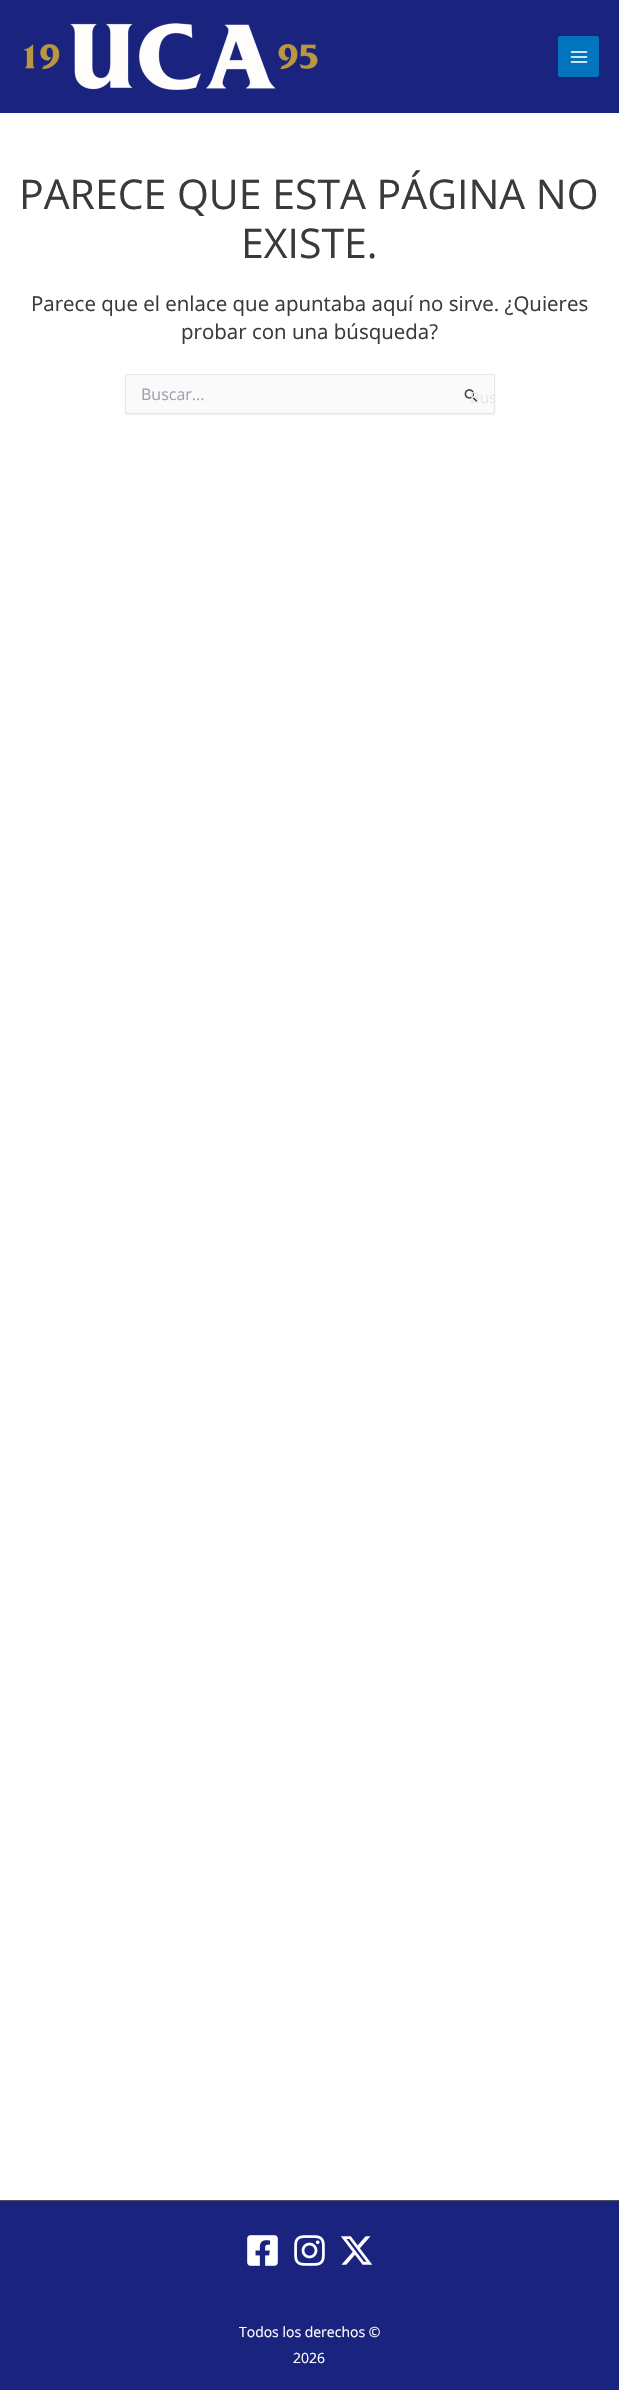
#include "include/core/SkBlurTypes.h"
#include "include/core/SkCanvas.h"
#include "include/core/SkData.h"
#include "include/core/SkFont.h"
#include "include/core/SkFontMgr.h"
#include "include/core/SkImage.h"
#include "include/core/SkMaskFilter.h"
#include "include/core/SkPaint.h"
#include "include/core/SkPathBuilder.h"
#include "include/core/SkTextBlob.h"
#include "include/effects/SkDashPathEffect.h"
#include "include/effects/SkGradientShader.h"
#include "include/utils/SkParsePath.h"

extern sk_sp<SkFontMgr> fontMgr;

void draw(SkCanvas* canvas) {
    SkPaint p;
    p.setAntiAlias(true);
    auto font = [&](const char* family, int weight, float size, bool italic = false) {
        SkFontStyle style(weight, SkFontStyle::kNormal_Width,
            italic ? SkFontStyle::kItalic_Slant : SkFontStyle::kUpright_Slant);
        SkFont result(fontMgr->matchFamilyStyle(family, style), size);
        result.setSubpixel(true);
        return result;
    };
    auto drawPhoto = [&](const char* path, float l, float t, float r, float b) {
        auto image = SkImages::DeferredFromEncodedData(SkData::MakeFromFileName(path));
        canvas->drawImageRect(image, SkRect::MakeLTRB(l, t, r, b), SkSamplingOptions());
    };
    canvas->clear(0xFFFFFFFF);
    p.setColor(0xFF1A237E);
    canvas->drawRect(SkRect::MakeLTRB(0, 0, 619, 113), p);
    drawPhoto("media/1.png", 23, 23, 318, 90);
    p.setColor(0xFF0274BE);
    canvas->drawRoundRect(SkRect::MakeLTRB(558, 36, 599, 77), 2, 2, p);
    drawPhoto("media/2.png", 570, 51, 588, 63);
    auto font1 = font("Open Sans", 400, 41);
    p.setColor(0xFF3A3A3A);
    canvas->drawString("PARECE QUE ESTA PÁGINA NO", 19, 209, font1, p);
    canvas->drawString("EXISTE.", 241, 258, font1, p);
    auto font2 = font("Open Sans", 400, 20.5f);
    canvas->drawString("Parece que el enlace que apuntaba aquí no sirve. ¿Quieres", 31, 311, font2, p);
    canvas->drawString("probar con una búsqueda?", 181, 339, font2, p);
    p.setColor(0x0D000000);
    p.setMaskFilter(SkMaskFilter::MakeBlur(kNormal_SkBlurStyle, 1));
    canvas->drawRoundRect(SkRect::MakeLTRB(125, 375, 495, 415), 2, 2, p);
    p.setMaskFilter(nullptr);
    p.setColor(0xFFFAFAFA);
    canvas->drawRoundRect(SkRect::MakeLTRB(125.5f, 374.5f, 494.5f, 413.5f), 1.5f, 1.5f, p);
    p.setStyle(SkPaint::kStroke_Style);
    p.setStrokeWidth(1);
    p.setColor(0xFFE5E5E5);
    canvas->drawRoundRect(SkRect::MakeLTRB(125.5f, 374.5f, 494.5f, 413.5f), 1.5f, 1.5f, p);
    auto font3 = font("Open Sans", 400, 16);
    p.setStyle(SkPaint::kFill_Style);
    p.setColor(0xFF9CA3AF);
    canvas->drawString("Buscar...", 141, 400, font3, p);
    drawPhoto("media/3.png", 464, 389, 478, 402);
    auto font4 = font("Open Sans", 400, 15);
    p.setColor(0xFFE7E7E7);
    canvas->drawString("Bus", 470, 403, font4, p);
    p.setColor(0xFF1A237E);
    canvas->drawRect(SkRect::MakeLTRB(0, 2201, 619, 2390), p);
    p.setColor(0xFF4B4F58);
    canvas->drawRect(SkRect::MakeLTRB(0, 2200, 619, 2201), p);
    drawPhoto("media/4.png", 247, 2235, 278, 2266);
    drawPhoto("media/5.png", 294, 2235, 325, 2266);
    drawPhoto("media/6.png", 341, 2236, 373, 2265);
    auto font5 = font("Open Sans", 400, 14);
    p.setColor(0xFFFFFFFF);
    canvas->drawString("Todos los derechos ©", 239, 2337, font5, p);
    canvas->drawString("2026", 293, 2363, font5, p);
}
